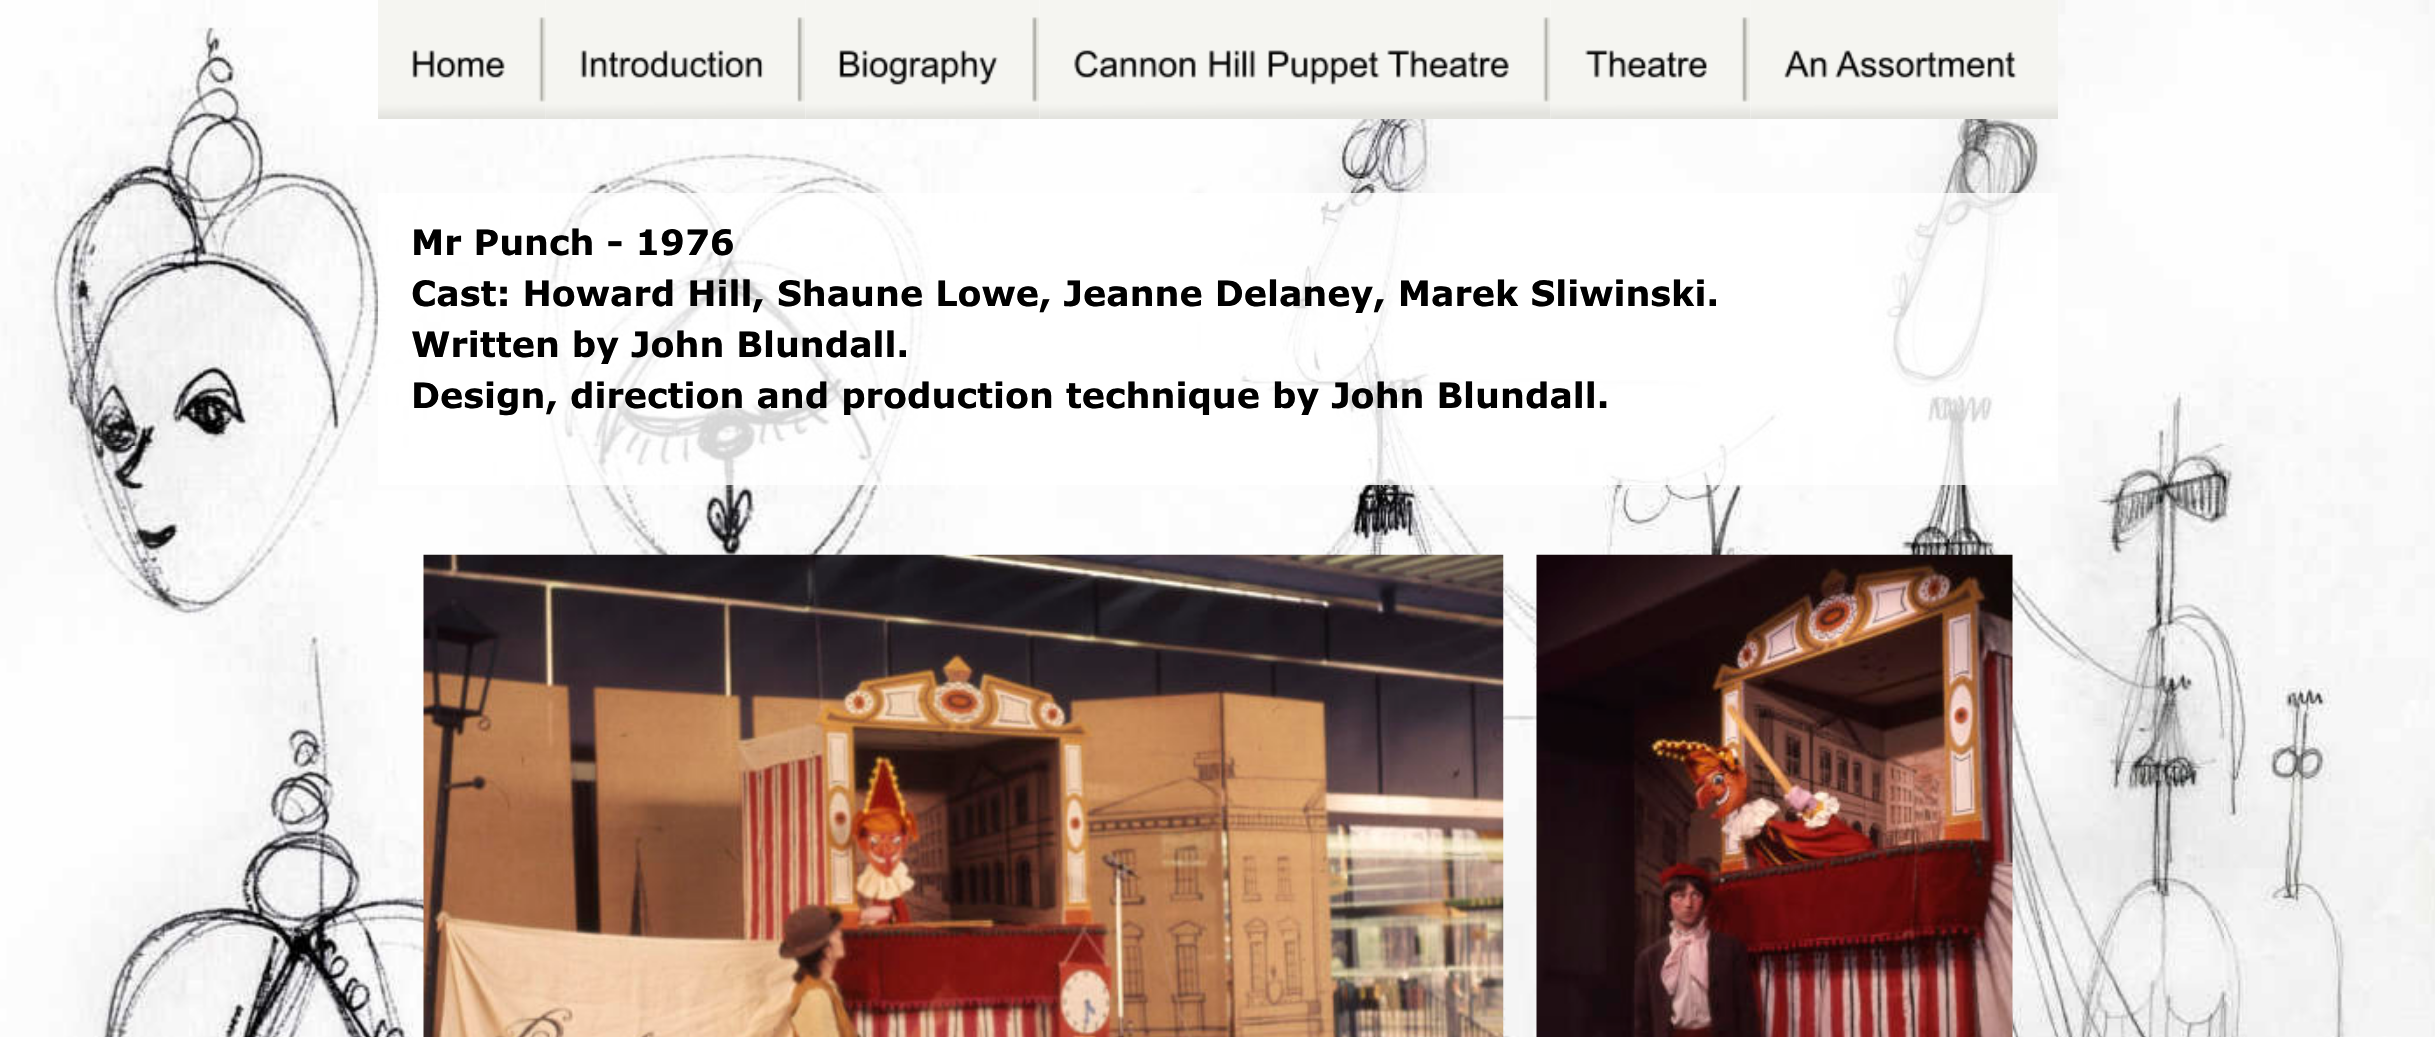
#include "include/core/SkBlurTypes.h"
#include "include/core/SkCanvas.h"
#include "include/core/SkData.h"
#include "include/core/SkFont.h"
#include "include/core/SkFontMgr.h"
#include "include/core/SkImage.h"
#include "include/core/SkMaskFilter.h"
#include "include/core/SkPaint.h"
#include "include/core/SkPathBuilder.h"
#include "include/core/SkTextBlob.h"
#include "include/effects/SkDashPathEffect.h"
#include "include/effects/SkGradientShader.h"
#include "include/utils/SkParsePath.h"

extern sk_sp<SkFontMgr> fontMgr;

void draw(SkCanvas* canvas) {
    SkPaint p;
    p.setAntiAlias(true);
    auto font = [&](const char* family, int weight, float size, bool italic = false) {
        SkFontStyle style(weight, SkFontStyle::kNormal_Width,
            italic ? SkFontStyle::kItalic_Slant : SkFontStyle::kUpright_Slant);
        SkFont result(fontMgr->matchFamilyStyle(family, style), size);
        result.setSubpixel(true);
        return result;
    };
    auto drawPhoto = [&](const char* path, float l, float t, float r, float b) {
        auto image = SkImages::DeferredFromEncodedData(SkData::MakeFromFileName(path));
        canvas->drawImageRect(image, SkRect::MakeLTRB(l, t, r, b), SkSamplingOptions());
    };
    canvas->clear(0xFFFFFFFF);
    drawPhoto("media/1.png", 0, 0, 2435, 1037);
    drawPhoto("media/2.png", 378, 0, 546, 119);
    drawPhoto("media/3.png", 546, 0, 805, 119);
    drawPhoto("media/4.png", 805, 0, 1040, 119);
    drawPhoto("media/5.png", 1039, 0, 1551, 119);
    drawPhoto("media/6.png", 1550, 0, 1750, 119);
    drawPhoto("media/7.png", 1750, 0, 2058, 119);
    p.setColor(0xCCFFFFFF);
    canvas->drawRect(SkRect::MakeLTRB(378, 193, 2058, 485), p);
    auto font1 = font("Verdana", 700, 35);
    p.setColor(0xFF000000);
    {
        const struct { const char* s; float x, y; } items[] = {
            {"Mr Punch - 1976", 411, 255},
            {"Cast: Howard Hill, Shaune Lowe, Jeanne Delaney, Marek Sliwinski.", 411, 306},
            {"Written by John Blundall.", 411, 357},
            {"Design, direction and production technique by John Blundall.", 411, 408},
        };
        for (auto [s, x, y] : items) {
            canvas->drawString(s, x, y, font1, p);
        }
    }
    drawPhoto("media/8.png", 423, 554, 1504, 1037);
    drawPhoto("media/9.png", 1536, 554, 2013, 1037);
}
